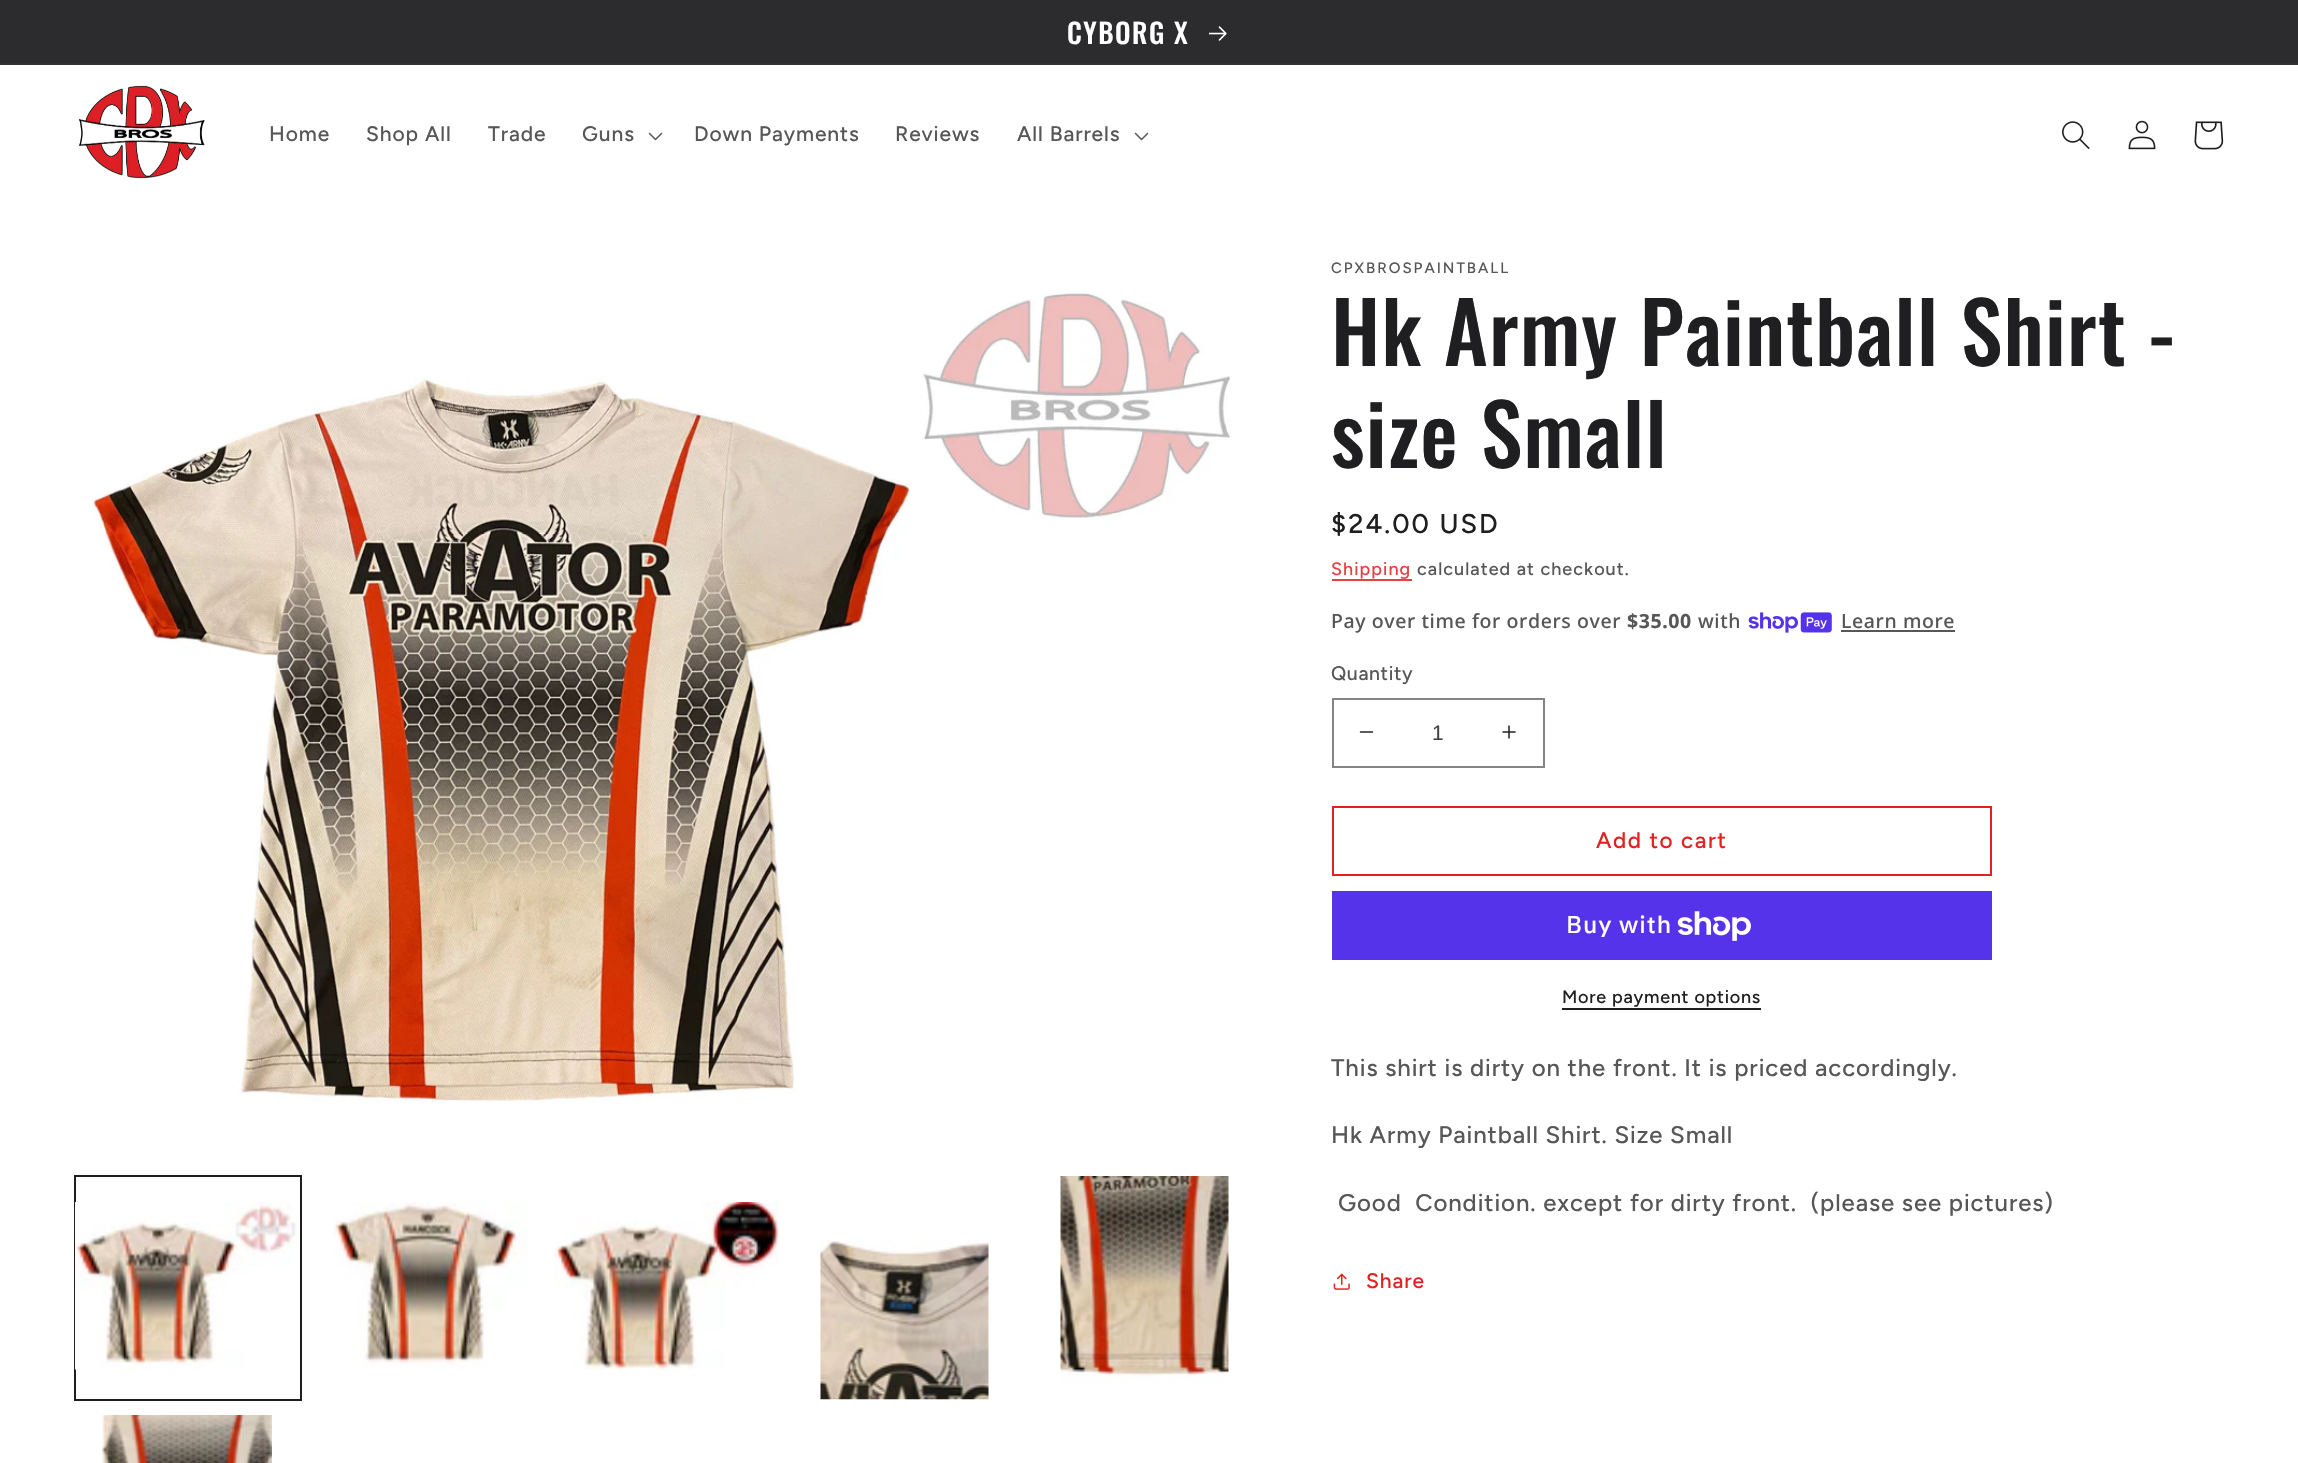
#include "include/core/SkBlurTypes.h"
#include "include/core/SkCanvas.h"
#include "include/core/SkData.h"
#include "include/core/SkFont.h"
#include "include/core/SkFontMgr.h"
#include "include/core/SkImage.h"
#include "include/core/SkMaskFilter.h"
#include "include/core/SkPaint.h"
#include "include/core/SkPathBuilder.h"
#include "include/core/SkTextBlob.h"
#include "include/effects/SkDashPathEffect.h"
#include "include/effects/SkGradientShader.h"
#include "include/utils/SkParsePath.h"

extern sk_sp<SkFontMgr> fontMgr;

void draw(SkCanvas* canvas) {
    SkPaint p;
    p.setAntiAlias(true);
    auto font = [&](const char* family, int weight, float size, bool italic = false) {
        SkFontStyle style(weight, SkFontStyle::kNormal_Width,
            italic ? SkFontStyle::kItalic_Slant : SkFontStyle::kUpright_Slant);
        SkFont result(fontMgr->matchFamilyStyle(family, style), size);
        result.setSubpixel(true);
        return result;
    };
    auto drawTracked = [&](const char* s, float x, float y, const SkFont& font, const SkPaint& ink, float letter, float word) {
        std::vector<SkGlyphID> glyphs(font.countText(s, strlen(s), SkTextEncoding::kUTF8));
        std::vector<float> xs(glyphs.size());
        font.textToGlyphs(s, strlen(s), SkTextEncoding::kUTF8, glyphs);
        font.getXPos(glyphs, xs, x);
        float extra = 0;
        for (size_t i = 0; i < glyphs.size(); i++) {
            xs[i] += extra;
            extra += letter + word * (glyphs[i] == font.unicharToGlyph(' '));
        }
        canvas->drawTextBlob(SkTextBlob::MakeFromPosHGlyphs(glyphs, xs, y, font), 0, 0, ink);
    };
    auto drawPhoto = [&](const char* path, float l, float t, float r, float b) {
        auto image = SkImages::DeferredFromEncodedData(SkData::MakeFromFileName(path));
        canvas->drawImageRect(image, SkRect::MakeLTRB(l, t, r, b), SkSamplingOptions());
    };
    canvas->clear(0xFFFFFFFF);
    p.setColor(0xFF313133);
    canvas->drawRect(SkRect::MakeLTRB(0, 63, 2298, 65), p);
    p.setColor(0xFF2C2C2E);
    canvas->drawRect(SkRect::MakeLTRB(0, 0, 2298, 63), p);
    auto font1 = font("Oswald", 500, 27.5f);
    p.setColor(0xFFFFFFFF);
    drawTracked("CYBORG X", 1067, 44, font1, p, 1.5f, 0);
    drawPhoto("media/1.png", 1209, 26, 1227, 41);
    drawPhoto("media/2.png", 78, 85, 205, 179);
    auto font2 = font("Figtree", 500, 21);
    p.setColor(0xFF575759);
    {
        const struct { const char* s; float x, y; } items[] = {
            {"Home", 269, 141},
            {"Shop All", 366, 141},
            {"Trade", 488, 141},
            {"Guns", 582, 141},
        };
        for (auto [s, x, y] : items) {
            drawTracked(s, x, y, font2, p, 0.9f, 0);
        }
    }
    drawPhoto("media/3.png", 648, 132, 663, 141);
    {
        const struct { const char* s; float x, y; } items[] = {
            {"Down Payments", 694, 141},
            {"Reviews", 895, 141},
            {"All Barrels", 1017, 141},
        };
        for (auto [s, x, y] : items) {
            drawTracked(s, x, y, font2, p, 0.9f, 0);
        }
    }
    drawPhoto("media/3.png", 1134, 132, 1149, 141);
    drawPhoto("media/4.png", 2062, 121, 2090, 149);
    drawPhoto("media/5.png", 2128, 120, 2156, 150);
    drawPhoto("media/6.png", 2194, 121, 2224, 150);
    drawPhoto("media/7.png", 92, 293, 1231, 1102);
    p.setStyle(SkPaint::kStroke_Style);
    p.setStrokeWidth(2);
    p.setColor(0xFF1F1F21);
    canvas->drawRect(SkRect::MakeLTRB(75, 1176, 301, 1400), p);
    drawPhoto("media/8.png", 75, 1202, 298, 1370);
    drawPhoto("media/9.png", 333, 1202, 528, 1369);
    drawPhoto("media/10.png", 554, 1202, 779, 1370);
    drawPhoto("media/11.png", 820, 1239, 989, 1400);
    drawPhoto("media/12.png", 1060, 1176, 1229, 1383);
    drawPhoto("media/13.png", 102, 1415, 272, 1463);
    auto font3 = font("Figtree", 500, 15);
    p.setStyle(SkPaint::kFill_Style);
    p.setColor(0xFF575759);
    drawTracked("CPXBROSPAINTBALL", 1331, 273, font3, p, 2, 0);
    auto font4 = font("Oswald", 500, 84);
    p.setColor(0xFF1F1F21);
    drawTracked("Hk Army Paintball Shirt -", 1331, 366, font4, p, 1.25f, 0);
    drawTracked("size Small", 1331, 468, font4, p, 1.25f, 0);
    auto font5 = font("Figtree", 500, 27);
    drawTracked("$24.00 USD", 1331, 533, font5, p, 2, 0);
    auto font6 = font("Figtree", 500, 18);
    p.setColor(0xFFE64241);
    drawTracked("Shipping", 1331, 575, font6, p, 1.05f, 0);
    canvas->drawRect(SkRect::MakeLTRB(1332, 579, 1412, 581), p);
    p.setColor(0xFF575759);
    drawTracked("calculated at checkout.", 1417, 575, font6, p, 1.05f, 0);
    auto font7 = font("Noto Sans", 500, 19.5f);
    drawTracked("Pay over time for orders over", 1331, 628, font7, p, 0.6f, 0);
    auto font8 = font("Noto Sans", 700, 19.5f);
    drawTracked("$35.00", 1627, 628, font8, p, 0.6f, 0);
    drawTracked("with", 1698, 628, font7, p, 0.6f, 0);
    drawPhoto("media/14.png", 1748, 612, 1832, 633);
    drawTracked("Learn more", 1841, 628, font7, p, 0.6f, 0);
    canvas->drawRect(SkRect::MakeLTRB(1841, 630, 1955, 632), p);
    auto font9 = font("Figtree", 500, 19.5f);
    drawTracked("Quantity", 1331, 680, font9, p, 0.6f, 0);
    drawPhoto("media/15.png", 1359, 731, 1374, 733);
    drawPhoto("media/16.png", 1502, 725, 1516, 739);
    p.setStyle(SkPaint::kStroke_Style);
    p.setColor(0xFF848485);
    canvas->drawRect(SkRect::MakeLTRB(1333, 699, 1544, 767), p);
    auto font10 = font("Liberation Sans", 400, 21);
    p.setStyle(SkPaint::kFill_Style);
    p.setColor(0xFF414142);
    canvas->drawString("1", 1432, 740, font10, p);
    p.setStyle(SkPaint::kStroke_Style);
    p.setColor(0xFFE22120);
    canvas->drawRect(SkRect::MakeLTRB(1333, 807, 1991, 875), p);
    auto font11 = font("Figtree", 500, 22.5f);
    p.setStyle(SkPaint::kFill_Style);
    drawTracked("Add to cart", 1596, 848, font11, p, 1.5f, 0);
    p.setColor(0xFF5433EB);
    canvas->drawRect(SkRect::MakeLTRB(1332, 891, 1992, 960), p);
    auto font12 = font("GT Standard", 500, 24);
    p.setColor(0xFFFFFFFF);
    drawTracked("Buy with", 1566, 933, font12, p, 0.9f, 0);
    drawPhoto("media/17.png", 1677, 911, 1751, 941);
    p.setColor(0xFF1F1F21);
    drawTracked("More payment options", 1562, 1003, font6, p, 0.75f, 0);
    canvas->drawRect(SkRect::MakeLTRB(1562, 1008, 1761, 1010), p);
    auto font13 = font("Figtree", 500, 24);
    p.setColor(0xFF575759);
    {
        const struct { const char* s; float x, y; } items[] = {
            {"This shirt is dirty on the front. It is priced accordingly.", 1331, 1076},
            {"Hk Army Paintball Shirt. Size Small", 1331, 1143},
            {"Good  Condition. except for dirty front.  (please see pictures)", 1338, 1211},
        };
        for (auto [s, x, y] : items) {
            drawTracked(s, x, y, font13, p, 0.9f, 0);
        }
    }
    drawPhoto("media/18.png", 1333, 1273, 1350, 1290);
    p.setColor(0xFFE22120);
    drawTracked("Share", 1366, 1288, font2, p, 0.9f, 0);
}
